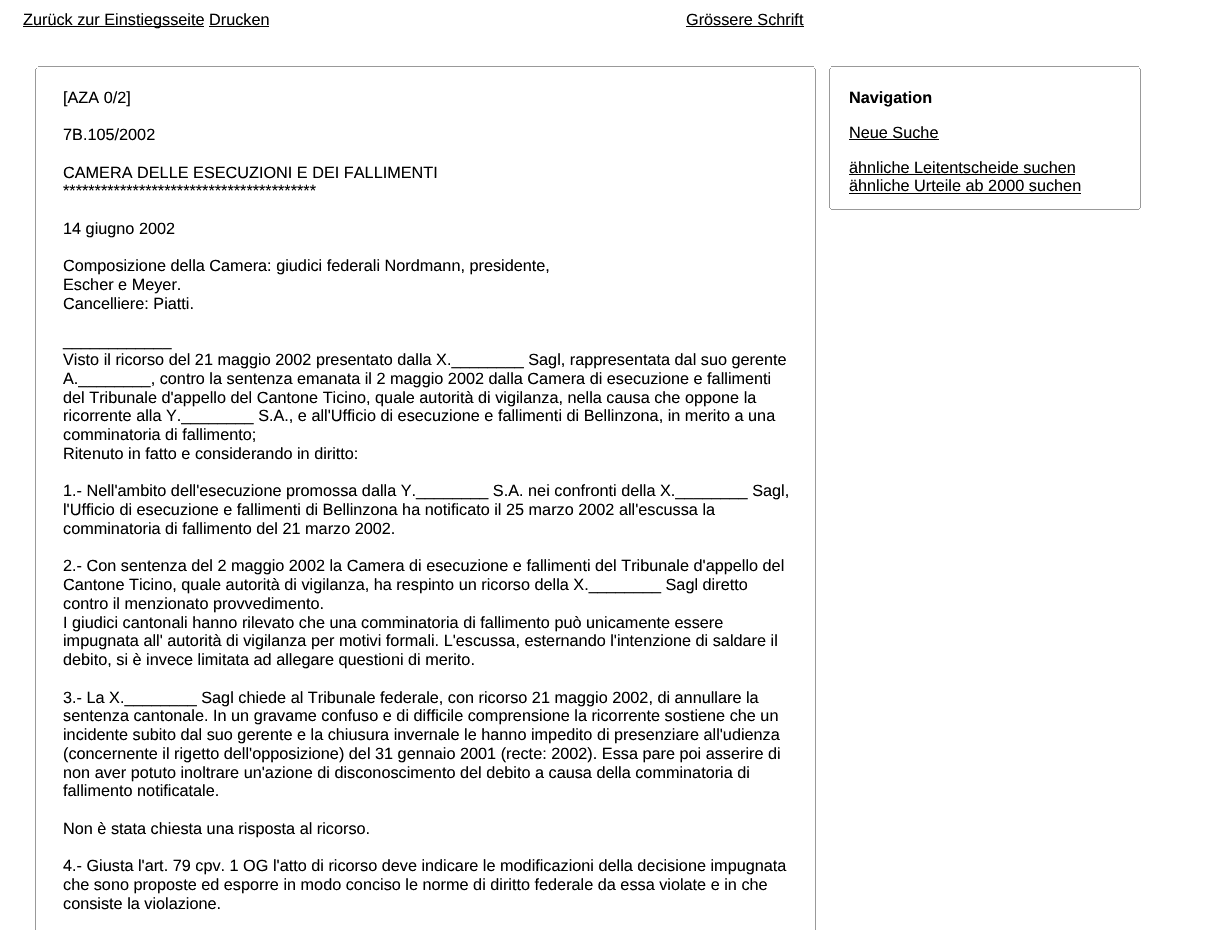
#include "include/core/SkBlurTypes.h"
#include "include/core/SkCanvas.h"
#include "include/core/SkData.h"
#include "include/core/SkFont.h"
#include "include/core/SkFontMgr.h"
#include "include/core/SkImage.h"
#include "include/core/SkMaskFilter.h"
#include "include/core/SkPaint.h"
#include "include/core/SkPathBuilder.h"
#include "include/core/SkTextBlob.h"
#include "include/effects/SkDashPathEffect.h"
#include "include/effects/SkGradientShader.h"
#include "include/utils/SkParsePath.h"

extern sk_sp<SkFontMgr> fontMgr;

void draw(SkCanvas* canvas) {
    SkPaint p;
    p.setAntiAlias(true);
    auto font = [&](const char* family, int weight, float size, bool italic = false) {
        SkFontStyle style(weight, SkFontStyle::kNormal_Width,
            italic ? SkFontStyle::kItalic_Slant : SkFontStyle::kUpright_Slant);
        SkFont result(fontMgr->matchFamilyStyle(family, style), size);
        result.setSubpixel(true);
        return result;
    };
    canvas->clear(0xFFFFFFFF);
    p.setColor(0xFF000000);
    canvas->drawRect(SkRect::MakeLTRB(23, 26, 204, 27), p);
    auto font1 = font("Liberation Sans", 400, 16.25f);
    canvas->drawString("Zurück zur Einstiegsseite Drucken", 23, 25, font1, p);
    canvas->drawRect(SkRect::MakeLTRB(209, 26, 269, 27), p);
    canvas->drawString("Grössere Schrift", 686, 25, font1, p);
    {
        const struct { float l, t, r, b; SkColor color; } items[] = {
            {686, 26, 804, 27, 0xFF000000},
            {38, 66, 814, 67, 0xFF999999},
            {814, 68, 815, 69, 0xFF999999},
            {36, 68, 37, 69, 0xFF999999},
            {815, 69, 816, 930, 0xFF999999},
            {35, 69, 36, 930, 0xFF999999},
        };
        for (auto [l, t, r, b, color] : items) {
            p.setColor(color);
            canvas->drawRect(SkRect::MakeLTRB(l, t, r, b), p);
        }
    }
    p.setColor(0xFF000000);
    {
        const struct { const char* s; float x, y; } items[] = {
            {"[AZA 0/2]", 63, 103},
            {"7B.105/2002", 63, 140},
            {"CAMERA DELLE ESECUZIONI E DEI FALLIMENTI", 63, 178},
            {"****************************************", 63, 196},
            {"14 giugno 2002", 63, 234},
            {"Composizione della Camera: giudici federali Nordmann, presidente,", 63, 271},
            {"Escher e Meyer.", 63, 290},
            {"Cancelliere: Piatti.", 63, 309},
            {"____________", 63, 346},
            {"Visto il ricorso del 21 maggio 2002 presentato dalla X.________ Sagl, rappresentata dal suo gerente", 63, 365},
            {"A.________, contro la sentenza emanata il 2 maggio 2002 dalla Camera di esecuzione e fallimenti", 63, 384},
            {"del Tribunale d'appello del Cantone Ticino, quale autorità di vigilanza, nella causa che oppone la", 63, 403},
            {"ricorrente alla Y.________ S.A., e all'Ufficio di esecuzione e fallimenti di Bellinzona, in merito a una", 63, 421},
            {"comminatoria di fallimento;", 63, 440},
            {"Ritenuto in fatto e considerando in diritto:", 63, 459},
            {"1.- Nell'ambito dell'esecuzione promossa dalla Y.________ S.A. nei confronti della X.________ Sagl,", 63, 496},
            {"l'Ufficio di esecuzione e fallimenti di Bellinzona ha notificato il 25 marzo 2002 all'escussa la", 63, 515},
            {"comminatoria di fallimento del 21 marzo 2002.", 63, 534},
            {"2.- Con sentenza del 2 maggio 2002 la Camera di esecuzione e fallimenti del Tribunale d'appello del", 63, 571},
            {"Cantone Ticino, quale autorità di vigilanza, ha respinto un ricorso della X.________ Sagl diretto", 63, 590},
            {"contro il menzionato provvedimento.", 63, 609},
            {"I giudici cantonali hanno rilevato che una comminatoria di fallimento può unicamente essere", 63, 628},
            {"impugnata all' autorità di vigilanza per motivi formali. L'escussa, esternando l'intenzione di saldare il", 63, 646},
            {"debito, si è invece limitata ad allegare questioni di merito.", 63, 665},
            {"3.- La X.________ Sagl chiede al Tribunale federale, con ricorso 21 maggio 2002, di annullare la", 63, 703},
            {"sentenza cantonale. In un gravame confuso e di difficile comprensione la ricorrente sostiene che un", 63, 721},
            {"incidente subito dal suo gerente e la chiusura invernale le hanno impedito di presenziare all'udienza", 63, 740},
            {"(concernente il rigetto dell'opposizione) del 31 gennaio 2001 (recte: 2002). Essa pare poi asserire di", 63, 759},
            {"non aver potuto inoltrare un'azione di disconoscimento del debito a causa della comminatoria di", 63, 778},
            {"fallimento notificatale.", 63, 796},
            {"Non è stata chiesta una risposta al ricorso.", 63, 834},
            {"4.- Giusta l'art. 79 cpv. 1 OG l'atto di ricorso deve indicare le modificazioni della decisione impugnata", 63, 871},
            {"che sono proposte ed esporre in modo conciso le norme di diritto federale da essa violate e in che", 63, 890},
            {"consiste la violazione.", 63, 909},
        };
        for (auto [s, x, y] : items) {
            canvas->drawString(s, x, y, font1, p);
        }
    }
    {
        const struct { float l, t, r, b; SkColor color; } items[] = {
            {831, 66, 1139, 67, 0xFF999999},
            {1139, 68, 1140, 69, 0xFF999999},
            {830, 68, 831, 69, 0xFF999999},
            {1140, 69, 1141, 208, 0xFF999999},
            {829, 69, 830, 208, 0xFF999999},
        };
        for (auto [l, t, r, b, color] : items) {
            p.setColor(color);
            canvas->drawRect(SkRect::MakeLTRB(l, t, r, b), p);
        }
    }
    auto font2 = font("Liberation Sans", 700, 16.25f);
    p.setColor(0xFF000000);
    canvas->drawString("Navigation", 849, 103, font2, p);
    canvas->drawString("Neue Suche", 849, 138, font1, p);
    canvas->drawRect(SkRect::MakeLTRB(849, 139, 939, 140), p);
    canvas->drawString("ähnliche Leitentscheide suchen", 849, 173, font1, p);
    canvas->drawRect(SkRect::MakeLTRB(849, 174, 1075, 175), p);
    canvas->drawString("ähnliche Urteile ab 2000 suchen", 849, 191, font1, p);
    {
        const struct { float l, t, r, b; SkColor color; } items[] = {
            {849, 193, 1081, 194, 0xFF000000},
            {1139, 208, 1140, 209, 0xFF999999},
            {830, 208, 831, 209, 0xFF999999},
            {831, 209, 1139, 210, 0xFF999999},
        };
        for (auto [l, t, r, b, color] : items) {
            p.setColor(color);
            canvas->drawRect(SkRect::MakeLTRB(l, t, r, b), p);
        }
    }
}
